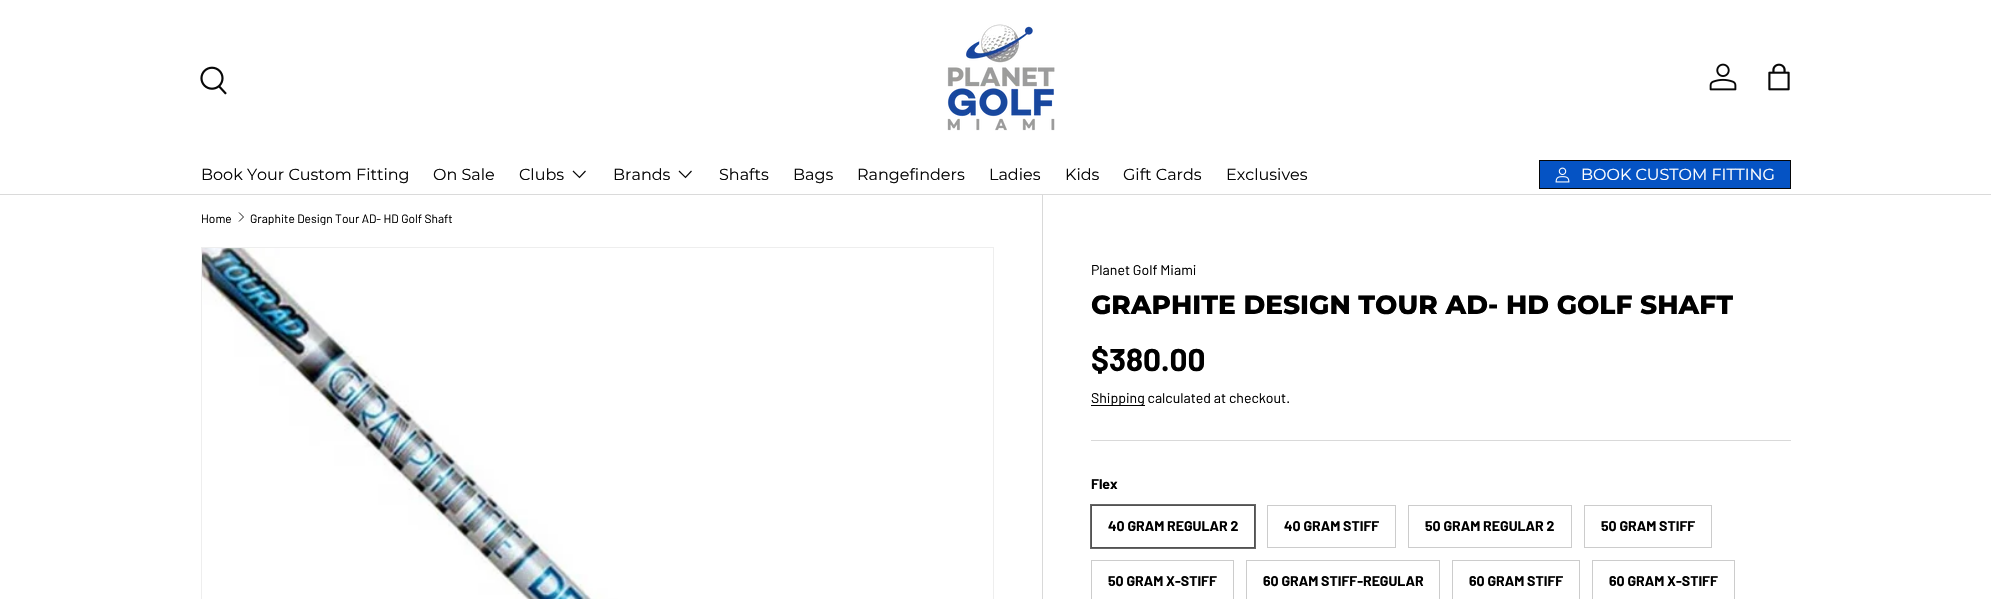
#include "include/core/SkBlurTypes.h"
#include "include/core/SkCanvas.h"
#include "include/core/SkData.h"
#include "include/core/SkFont.h"
#include "include/core/SkFontMgr.h"
#include "include/core/SkImage.h"
#include "include/core/SkMaskFilter.h"
#include "include/core/SkPaint.h"
#include "include/core/SkPathBuilder.h"
#include "include/core/SkTextBlob.h"
#include "include/effects/SkDashPathEffect.h"
#include "include/effects/SkGradientShader.h"
#include "include/utils/SkParsePath.h"

extern sk_sp<SkFontMgr> fontMgr;

void draw(SkCanvas* canvas) {
    SkPaint p;
    p.setAntiAlias(true);
    auto font = [&](const char* family, int weight, float size, bool italic = false) {
        SkFontStyle style(weight, SkFontStyle::kNormal_Width,
            italic ? SkFontStyle::kItalic_Slant : SkFontStyle::kUpright_Slant);
        SkFont result(fontMgr->matchFamilyStyle(family, style), size);
        result.setSubpixel(true);
        return result;
    };
    auto drawPhoto = [&](const char* path, float l, float t, float r, float b) {
        auto image = SkImages::DeferredFromEncodedData(SkData::MakeFromFileName(path));
        canvas->drawImageRect(image, SkRect::MakeLTRB(l, t, r, b), SkSamplingOptions());
    };
    canvas->clear(0xFFFFFFFF);
    {
        const struct { float l, t, r, b; SkColor color; } items[] = {
            {1042, 189, 1043, 599, 0xFFD9D9D9},
            {1042, 189, 1043, 194, 0xFFFFFFFF},
            {0, 194, 1991, 195, 0xFFDADADA},
        };
        for (auto [l, t, r, b, color] : items) {
            p.setColor(color);
            canvas->drawRect(SkRect::MakeLTRB(l, t, r, b), p);
        }
    }
    drawPhoto("media/1.png", 200, 66, 227, 95);
    drawPhoto("media/2.png", 947, 24, 1055, 131);
    drawPhoto("media/3.png", 1709, 63, 1737, 91);
    drawPhoto("media/4.png", 1768, 63, 1790, 91);
    auto font1 = font("Montserrat", 400, 16);
    p.setColor(0xFF070707);
    {
        const struct { const char* s; float x, y; } items[] = {
            {"Book Your Custom Fitting", 201, 180},
            {"On Sale", 433, 180},
            {"Clubs", 519, 180},
        };
        for (auto [s, x, y] : items) {
            canvas->drawString(s, x, y, font1, p);
        }
    }
    p.setStyle(SkPaint::kStroke_Style);
    p.setStrokeWidth(1.2f);
    canvas->drawPath(SkPathBuilder().moveTo(585.5f, 171).lineTo(579.5f, 177.5f).lineTo(573, 171).detach(), p);
    p.setStyle(SkPaint::kFill_Style);
    canvas->drawString("Brands", 613, 180, font1, p);
    p.setStyle(SkPaint::kStroke_Style);
    canvas->drawPath(SkPathBuilder().moveTo(691.5f, 171).lineTo(685.5f, 177.5f).lineTo(679, 171).detach(), p);
    p.setStyle(SkPaint::kFill_Style);
    {
        const struct { const char* s; float x, y; } items[] = {
            {"Shafts", 719, 180},
            {"Bags", 793, 180},
            {"Rangefinders", 857, 180},
            {"Ladies", 989, 180},
            {"Kids", 1065, 180},
            {"Gift Cards", 1123, 180},
            {"Exclusives", 1226, 180},
        };
        for (auto [s, x, y] : items) {
            canvas->drawString(s, x, y, font1, p);
        }
    }
    {
        const SkColor colors[] = {0xFF3375D4, 0xFF0553C4, 0xFF0553C4};
        const float stops[] = {0.6f, 0.6f, 1};
        const SkPoint ends[] = {{1059, 86}, {1771, 263}};
        p.setShader(SkGradientShader::MakeLinear(ends, colors, stops, 3, SkTileMode::kClamp));
        p.setAlpha(255);
    }
    canvas->drawRect(SkRect::MakeLTRB(1540, 161, 1790, 188), p);
    p.setStyle(SkPaint::kStroke_Style);
    p.setStrokeWidth(1);
    p.setShader(nullptr);
    p.setColor(0xFF070707);
    canvas->drawRect(SkRect::MakeLTRB(1539.5f, 160.5f, 1790.5f, 188.5f), p);
    drawPhoto("media/5.png", 1555, 167, 1570, 183);
    p.setStyle(SkPaint::kFill_Style);
    p.setColor(0xFFFFFFFF);
    canvas->drawString("BOOK CUSTOM FITTING", 1581, 180, font1, p);
    auto font2 = font("Barlow", 400, 12);
    p.setColor(0xFF000000);
    canvas->drawString("Home", 201, 223, font2, p);
    p.setStyle(SkPaint::kStroke_Style);
    p.setStrokeWidth(0.9f);
    canvas->drawPath(SkPathBuilder().moveTo(239, 212.5f).lineTo(243.5f, 217).lineTo(239, 221.5f).detach(), p);
    canvas->save();
    canvas->clipRect(SkRect::MakeLTRB(250, 211, 453, 225));
    p.setStyle(SkPaint::kFill_Style);
    canvas->drawString("Graphite Design Tour AD- HD Golf Shaft", 250, 223, font2, p);
    canvas->restore();
    p.setStyle(SkPaint::kStroke_Style);
    p.setStrokeWidth(1);
    p.setColor(0xFFEEEEEE);
    canvas->drawRect(SkRect::MakeLTRB(201.5f, 247.5f, 993.5f, 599.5f), p);
    drawPhoto("media/6.png", 202, 248, 993, 599);
    auto font3 = font("Barlow", 400, 14.1f);
    p.setStyle(SkPaint::kFill_Style);
    p.setColor(0xFF000000);
    canvas->drawString("Planet Golf Miami", 1091, 275, font3, p);
    auto font4 = font("Montserrat", 800, 26.4f);
    canvas->drawString("GRAPHITE DESIGN TOUR AD- HD GOLF SHAFT", 1091, 314, font4, p);
    auto font5 = font("Barlow", 700, 31.5f);
    canvas->drawString("$380.00", 1091, 371, font5, p);
    canvas->drawRect(SkRect::MakeLTRB(1091, 405, 1145, 406), p);
    canvas->drawString("Shipping calculated at checkout.", 1091, 403, font3, p);
    p.setColor(0xFFD9D9D9);
    canvas->drawRect(SkRect::MakeLTRB(1091, 440, 1791, 441), p);
    auto font6 = font("Barlow", 700, 14.1f);
    p.setColor(0xFF000000);
    canvas->drawString("Flex", 1091, 489, font6, p);
    p.setStyle(SkPaint::kStroke_Style);
    p.setColor(0xFFCCCCCC);
    canvas->drawRect(SkRect::MakeLTRB(1091.5f, 505.5f, 1254.5f, 547.5f), p);
    p.setStrokeWidth(2);
    p.setColor(0x99000000);
    canvas->drawRect(SkRect::MakeLTRB(1091, 505, 1255, 548), p);
    p.setStyle(SkPaint::kFill_Style);
    p.setColor(0xFF000000);
    canvas->drawString("40 GRAM REGULAR 2", 1108, 531, font6, p);
    p.setStyle(SkPaint::kStroke_Style);
    p.setStrokeWidth(1);
    p.setColor(0xFFCCCCCC);
    canvas->drawRect(SkRect::MakeLTRB(1267.5f, 505.5f, 1395.5f, 547.5f), p);
    p.setStyle(SkPaint::kFill_Style);
    p.setColor(0xFF000000);
    canvas->drawString("40 GRAM STIFF", 1284, 531, font6, p);
    p.setStyle(SkPaint::kStroke_Style);
    p.setColor(0xFFCCCCCC);
    canvas->drawRect(SkRect::MakeLTRB(1408.5f, 505.5f, 1571.5f, 547.5f), p);
    p.setStyle(SkPaint::kFill_Style);
    p.setColor(0xFF000000);
    canvas->drawString("50 GRAM REGULAR 2", 1425, 531, font6, p);
    p.setStyle(SkPaint::kStroke_Style);
    p.setColor(0xFFCCCCCC);
    canvas->drawRect(SkRect::MakeLTRB(1584.5f, 505.5f, 1711.5f, 547.5f), p);
    p.setStyle(SkPaint::kFill_Style);
    p.setColor(0xFF000000);
    canvas->drawString("50 GRAM STIFF", 1601, 531, font6, p);
    p.setStyle(SkPaint::kStroke_Style);
    p.setColor(0xFFCCCCCC);
    canvas->drawRect(SkRect::MakeLTRB(1091.5f, 560.5f, 1233.5f, 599.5f), p);
    p.setStyle(SkPaint::kFill_Style);
    p.setColor(0xFF000000);
    canvas->drawString("50 GRAM X-STIFF", 1108, 586, font6, p);
    p.setStyle(SkPaint::kStroke_Style);
    p.setColor(0xFFCCCCCC);
    canvas->drawRect(SkRect::MakeLTRB(1246.5f, 560.5f, 1439.5f, 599.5f), p);
    p.setStyle(SkPaint::kFill_Style);
    p.setColor(0xFF000000);
    canvas->drawString("60 GRAM STIFF-REGULAR", 1263, 586, font6, p);
    p.setStyle(SkPaint::kStroke_Style);
    p.setColor(0xFFCCCCCC);
    canvas->drawRect(SkRect::MakeLTRB(1452.5f, 560.5f, 1579.5f, 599.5f), p);
    p.setStyle(SkPaint::kFill_Style);
    p.setColor(0xFF000000);
    canvas->drawString("60 GRAM STIFF", 1469, 586, font6, p);
    p.setStyle(SkPaint::kStroke_Style);
    p.setColor(0xFFCCCCCC);
    canvas->drawRect(SkRect::MakeLTRB(1592.5f, 560.5f, 1734.5f, 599.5f), p);
    p.setStyle(SkPaint::kFill_Style);
    p.setColor(0xFF000000);
    canvas->drawString("60 GRAM X-STIFF", 1609, 586, font6, p);
}
